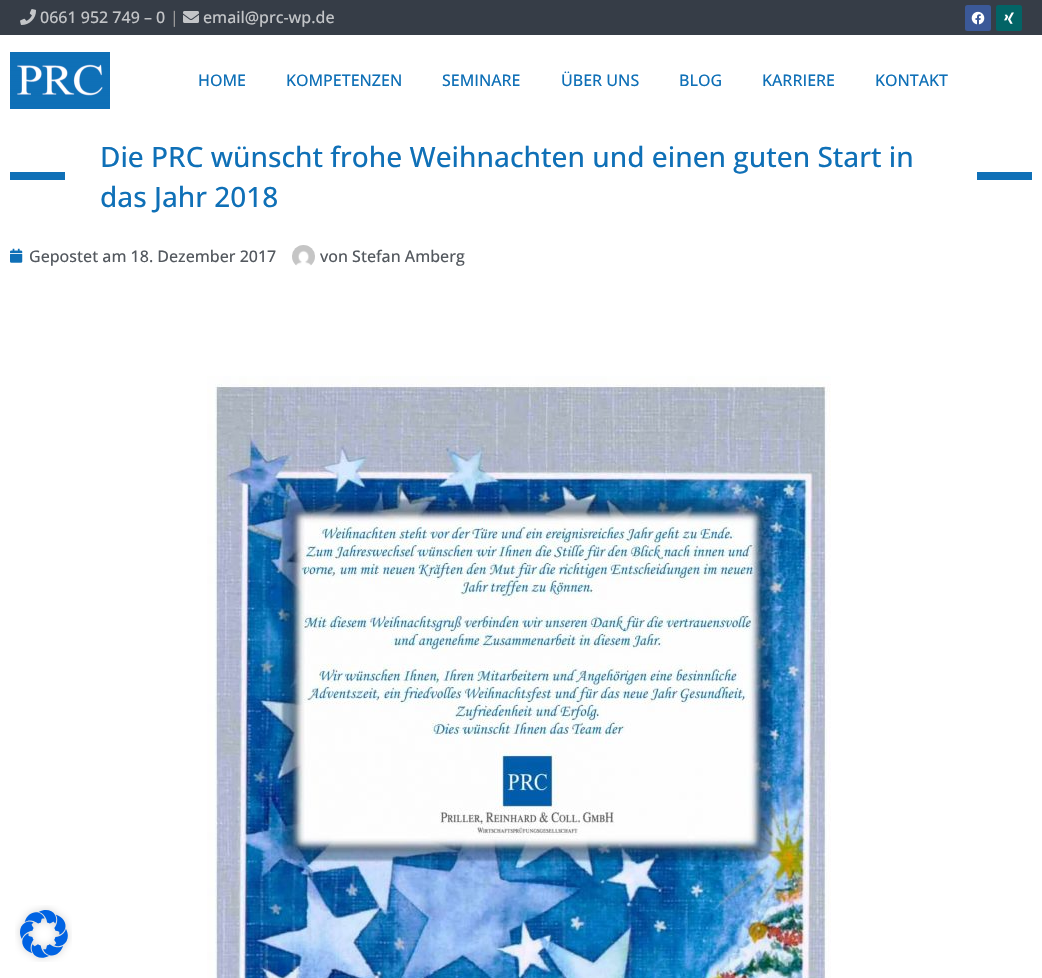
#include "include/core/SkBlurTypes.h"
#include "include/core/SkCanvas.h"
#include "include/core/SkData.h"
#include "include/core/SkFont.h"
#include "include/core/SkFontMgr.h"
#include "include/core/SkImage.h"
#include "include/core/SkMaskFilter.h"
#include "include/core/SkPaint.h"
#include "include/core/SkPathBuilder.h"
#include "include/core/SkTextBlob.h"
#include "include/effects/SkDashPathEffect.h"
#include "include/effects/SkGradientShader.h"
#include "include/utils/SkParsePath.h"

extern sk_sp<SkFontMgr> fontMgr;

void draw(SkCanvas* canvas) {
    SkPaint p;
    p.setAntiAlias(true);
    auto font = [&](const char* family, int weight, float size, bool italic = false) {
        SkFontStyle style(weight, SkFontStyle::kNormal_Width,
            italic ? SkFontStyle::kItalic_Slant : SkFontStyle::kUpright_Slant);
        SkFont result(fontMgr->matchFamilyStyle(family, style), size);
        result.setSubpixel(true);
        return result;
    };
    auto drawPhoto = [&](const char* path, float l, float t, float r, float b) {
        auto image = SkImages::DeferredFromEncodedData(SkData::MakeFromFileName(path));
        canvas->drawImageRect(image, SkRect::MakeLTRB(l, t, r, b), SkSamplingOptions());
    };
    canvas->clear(0xFFFFFFFF);
    p.setColor(0xFF363D47);
    canvas->drawRect(SkRect::MakeLTRB(0, 0, 1042, 35), p);
    drawPhoto("media/1.png", 20, 9, 36, 25);
    auto font1 = font("Open Sans", 500, 16);
    p.setColor(0xFFC3C5C8);
    canvas->drawString("0661 952 749 – 0", 40, 23, font1, p);
    p.setColor(0xFF999999);
    canvas->drawString("|", 170, 23, font1, p);
    drawPhoto("media/2.png", 183, 11, 199, 23);
    p.setColor(0xFFC3C5C8);
    canvas->drawString("email@prc-wp.de", 203, 23, font1, p);
    p.setColor(0xFF3B5998);
    canvas->drawRoundRect(SkRect::MakeLTRB(965, 5, 991, 31), 2.5f, 2.5f, p);
    drawPhoto("media/3.png", 971, 11, 985, 25);
    p.setColor(0xFF026466);
    canvas->drawRoundRect(SkRect::MakeLTRB(996, 5, 1022, 31), 2.5f, 2.5f, p);
    drawPhoto("media/4.png", 1004, 12, 1014, 24);
    drawPhoto("media/5.png", 10, 52, 110, 109);
    p.setColor(0xFF0F70B7);
    {
        const struct { const char* s; float x, y; } items[] = {
            {"HOME", 198, 86},
            {"KOMPETENZEN", 286, 86},
            {"SEMINARE", 442, 86},
            {"ÜBER UNS", 561, 86},
            {"BLOG", 679, 86},
            {"KARRIERE", 762, 86},
            {"KONTAKT", 875, 86},
        };
        for (auto [s, x, y] : items) {
            canvas->drawString(s, x, y, font1, p);
        }
    }
    canvas->drawRect(SkRect::MakeLTRB(10, 172, 65, 180), p);
    auto font2 = font("Open Sans", 500, 28);
    canvas->drawString("Die PRC wünscht frohe Weihnachten und einen guten Start in", 100, 167, font2, p);
    canvas->drawString("das Jahr 2018", 100, 207, font2, p);
    canvas->drawRect(SkRect::MakeLTRB(977, 172, 1032, 180), p);
    drawPhoto("media/6.png", 10, 248, 23, 263);
    p.setColor(0xFF54595F);
    canvas->drawString("Gepostet am 18. Dezember 2017", 29, 262, font1, p);
    drawPhoto("media/7.png", 292, 245, 315, 266);
    canvas->drawString("von Stefan Amberg", 320, 262, font1, p);
    drawPhoto("media/8.png", 207, 376, 831, 978);
    drawPhoto("media/9.png", 15, 905, 72, 962);
}
